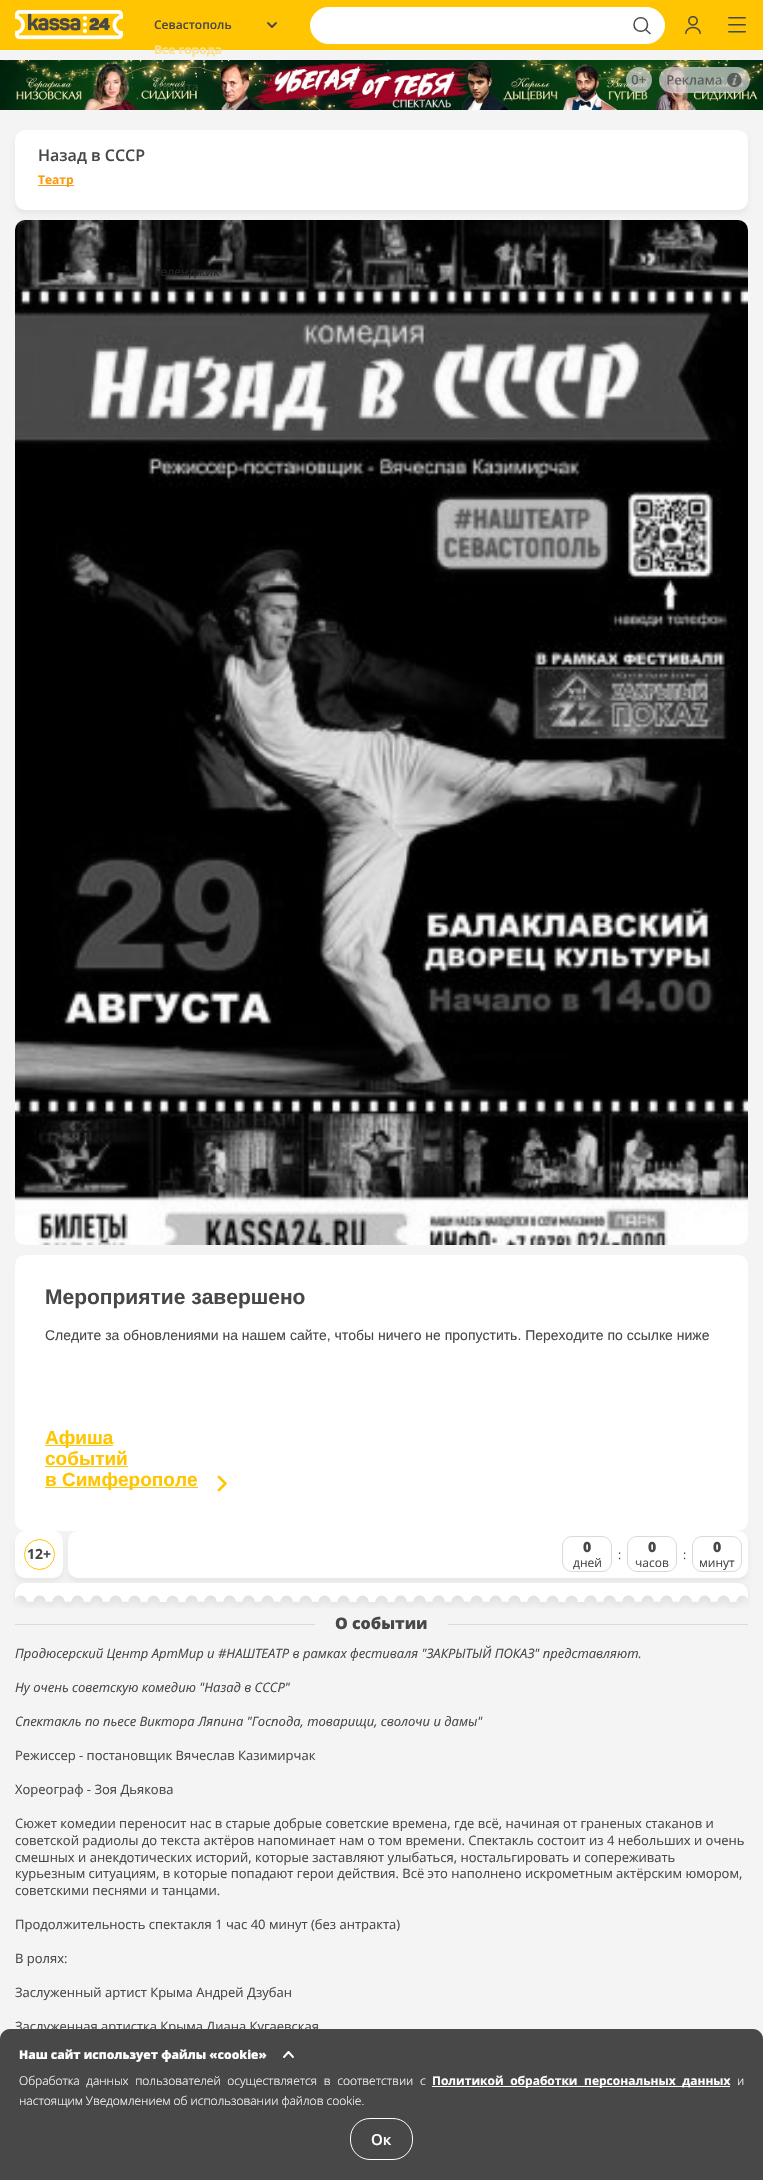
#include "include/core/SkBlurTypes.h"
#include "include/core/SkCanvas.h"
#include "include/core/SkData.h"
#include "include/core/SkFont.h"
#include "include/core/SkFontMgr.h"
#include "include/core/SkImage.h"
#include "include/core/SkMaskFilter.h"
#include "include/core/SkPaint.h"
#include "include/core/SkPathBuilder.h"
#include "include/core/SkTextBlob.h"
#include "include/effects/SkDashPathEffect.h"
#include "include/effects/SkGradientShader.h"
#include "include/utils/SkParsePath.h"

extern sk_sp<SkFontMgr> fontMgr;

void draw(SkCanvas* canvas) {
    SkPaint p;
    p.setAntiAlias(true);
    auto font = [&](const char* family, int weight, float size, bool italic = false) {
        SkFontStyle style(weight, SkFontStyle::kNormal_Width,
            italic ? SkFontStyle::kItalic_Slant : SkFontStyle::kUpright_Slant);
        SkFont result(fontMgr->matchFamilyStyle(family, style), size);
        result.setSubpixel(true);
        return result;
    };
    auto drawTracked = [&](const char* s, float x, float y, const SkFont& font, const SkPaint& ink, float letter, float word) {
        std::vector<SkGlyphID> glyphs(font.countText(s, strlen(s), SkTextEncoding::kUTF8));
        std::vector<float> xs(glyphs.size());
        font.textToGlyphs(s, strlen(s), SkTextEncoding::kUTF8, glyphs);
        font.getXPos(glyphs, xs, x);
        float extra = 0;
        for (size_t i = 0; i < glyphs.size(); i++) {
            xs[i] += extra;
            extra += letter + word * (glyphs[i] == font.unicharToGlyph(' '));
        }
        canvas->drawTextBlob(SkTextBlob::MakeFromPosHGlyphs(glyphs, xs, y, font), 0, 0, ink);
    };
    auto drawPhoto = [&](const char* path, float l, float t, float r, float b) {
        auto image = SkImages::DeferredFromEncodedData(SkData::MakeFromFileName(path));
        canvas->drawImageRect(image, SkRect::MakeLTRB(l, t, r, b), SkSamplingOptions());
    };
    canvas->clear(0xFFF4F4F4);
    p.setColor(0xFFFFC502);
    canvas->drawRect(SkRect::MakeLTRB(0, 0, 763, 50), p);
    drawPhoto("media/1.png", 15, 10, 123, 40);
    auto font1 = font("Open Sans", 600, 12);
    p.setColor(0xFF484848);
    canvas->drawString("Севастополь", 154, 29, font1, p);
    p.setStyle(SkPaint::kStroke_Style);
    p.setStrokeWidth(1.9f);
    p.setStrokeCap(SkPaint::kRound_Cap);
    p.setStrokeJoin(SkPaint::kRound_Join);
    canvas->drawPath(SkPathBuilder().moveTo(276, 23).lineTo(272, 27).lineTo(268, 23).detach(), p);
    auto font2 = font("Open Sans", 700, 12);
    p.setStyle(SkPaint::kFill_Style);
    p.setColor(0xFFF8E194);
    canvas->drawString("Все города", 154, 54, font2, p);
    drawPhoto("media/4.png", 0, 60, 763, 110);
    auto font3 = font("Open Sans", 500, 12);
    p.setColor(0xFF284C28);
    canvas->drawString("Алушта", 154, 91, font3, p);
    p.setColor(0x0D000000);
    p.setMaskFilter(SkMaskFilter::MakeBlur(kNormal_SkBlurStyle, 2.5f));
    canvas->drawRoundRect(SkRect::MakeLTRB(15, 134, 748, 214), 10, 10, p);
    p.setMaskFilter(nullptr);
    drawPhoto("media/7.png", 15, 220, 748, 1245);
    p.setColor(0xFF222222);
    canvas->drawString("Геленджик", 154, 276, font3, p);
    p.setColor(0xFFFFFFFF);
    canvas->drawRoundRect(SkRect::MakeLTRB(310.5f, 7.5f, 664.5f, 43.5f), 18, 18, p);
    p.setStyle(SkPaint::kStroke_Style);
    p.setStrokeWidth(1);
    p.setStrokeCap(SkPaint::kButt_Cap);
    p.setStrokeJoin(SkPaint::kMiter_Join);
    canvas->drawRoundRect(SkRect::MakeLTRB(310.5f, 7.5f, 664.5f, 43.5f), 18, 18, p);
    p.setStrokeWidth(1.5f);
    p.setStrokeCap(SkPaint::kRound_Cap);
    p.setColor(0xFF484848);
    canvas->drawPath(SkPathBuilder().moveTo(645.5f, 29.5f).lineTo(650, 33.5f).moveTo(647.5f, 24.5f).cubicTo(647.5f, 33.5f, 634, 33.5f, 634, 24.5f).cubicTo(634, 15.5f, 647.5f, 15.5f, 647.5f, 24.5f).close().detach(), p);
    drawPhoto("media/2.png", 685, 15, 701, 35);
    drawPhoto("media/3.png", 728, 17, 746, 33);
    drawPhoto("media/5.png", 626, 67, 652, 93);
    drawPhoto("media/6.png", 659, 67, 750, 93);
    p.setStyle(SkPaint::kFill_Style);
    p.setColor(0xFFFFFFFF);
    canvas->drawRoundRect(SkRect::MakeLTRB(15, 130, 748, 210), 10, 10, p);
    auto font4 = font("Open Sans", 600, 16);
    p.setColor(0xFF484848);
    canvas->drawString("Назад в СССР", 38, 161, font4, p);
    p.setColor(0xFFFA990F);
    canvas->drawRect(SkRect::MakeLTRB(38, 185, 74, 186), p);
    canvas->drawString("Театр", 38, 184, font2, p);
    p.setColor(0xFFFFFFFF);
    canvas->drawRoundRect(SkRect::MakeLTRB(15, 1255, 748, 1531), 10, 10, p);
    auto font5 = font("Liberation Sans", 700, 21);
    p.setColor(0xFF484848);
    canvas->drawString("Мероприятие завершено", 45, 1304, font5, p);
    auto font6 = font("Liberation Sans", 400, 14);
    canvas->drawString("Следите за обновлениями на нашем сайте, чтобы ничего не пропустить. Переходите по ссылке ниже", 45, 1340, font6, p);
    p.setColor(0xFFFFC502);
    canvas->drawRect(SkRect::MakeLTRB(45, 1445, 113, 1446), p);
    auto font7 = font("Liberation Sans", 700, 19);
    canvas->drawString("Афиша", 45, 1444, font7, p);
    canvas->drawString("событий", 45, 1465, font7, p);
    canvas->drawRect(SkRect::MakeLTRB(45, 1466, 128, 1467), p);
    canvas->drawRect(SkRect::MakeLTRB(45, 1487, 198, 1488), p);
    canvas->drawString("в Симферополе", 45, 1486, font7, p);
    drawPhoto("media/8.png", 217, 1475, 227, 1492);
    p.setColor(0x0D000000);
    p.setMaskFilter(SkMaskFilter::MakeBlur(kNormal_SkBlurStyle, 2.5f));
    canvas->drawRoundRect(SkRect::MakeLTRB(15, 1535, 63, 1582), 10, 10, p);
    p.setMaskFilter(nullptr);
    p.setColor(0xFFFFFFFF);
    canvas->drawRoundRect(SkRect::MakeLTRB(15, 1531, 63, 1578), 10, 10, p);
    p.setStyle(SkPaint::kStroke_Style);
    p.setStrokeWidth(1);
    p.setStrokeCap(SkPaint::kButt_Cap);
    p.setColor(0xFFFFC502);
    canvas->drawCircle(39.5f, 1554.5f, 15, p);
    auto font8 = font("Open Sans", 700, 14);
    p.setStyle(SkPaint::kFill_Style);
    p.setColor(0xFF484848);
    canvas->drawString("12+", 27, 1559, font8, p);
    p.setColor(0x0D000000);
    p.setMaskFilter(SkMaskFilter::MakeBlur(kNormal_SkBlurStyle, 2.5f));
    canvas->drawRoundRect(SkRect::MakeLTRB(68, 1535, 748, 1582), 10, 10, p);
    p.setMaskFilter(nullptr);
    p.setColor(0xFFFFFFFF);
    canvas->drawRoundRect(SkRect::MakeLTRB(68, 1531, 748, 1578), 10, 10, p);
    p.setStyle(SkPaint::kStroke_Style);
    p.setColor(0xFFDADADA);
    canvas->drawRoundRect(SkRect::MakeLTRB(562.5f, 1536.5f, 611.5f, 1571.5f), 9.5f, 9.5f, p);
    auto font9 = font("Open Sans", 800, 14);
    p.setStyle(SkPaint::kFill_Style);
    p.setColor(0xFF484848);
    canvas->drawString("0", 583, 1552, font9, p);
    auto font10 = font("Open Sans", 400, 12);
    canvas->drawString(":", 618, 1559, font10, p);
    canvas->drawString("дней", 573, 1567, font10, p);
    p.setStyle(SkPaint::kStroke_Style);
    p.setColor(0xFFDADADA);
    canvas->drawRoundRect(SkRect::MakeLTRB(627.5f, 1536.5f, 676.5f, 1571.5f), 9.5f, 9.5f, p);
    p.setStyle(SkPaint::kFill_Style);
    p.setColor(0xFF484848);
    canvas->drawString("0", 648, 1552, font9, p);
    canvas->drawString(":", 683, 1559, font10, p);
    canvas->drawString("часов", 635, 1567, font10, p);
    p.setStyle(SkPaint::kStroke_Style);
    p.setColor(0xFFDADADA);
    canvas->drawRoundRect(SkRect::MakeLTRB(692.5f, 1536.5f, 741.5f, 1571.5f), 9.5f, 9.5f, p);
    p.setStyle(SkPaint::kFill_Style);
    p.setColor(0xFF484848);
    canvas->drawString("0", 713, 1552, font9, p);
    canvas->drawString("минут", 699, 1567, font10, p);
    drawPhoto("media/9.png", 13, 1583, 750, 1608);
    p.setColor(0xFFDADADA);
    canvas->drawRect(SkRect::MakeLTRB(15, 1624, 748, 1625), p);
    p.setColor(0xFFF4F4F4);
    canvas->drawRect(SkRect::MakeLTRB(315, 1624, 448, 1625), p);
    auto font11 = font("Open Sans", 800, 16);
    p.setColor(0xFF484848);
    canvas->drawString("О событии", 335, 1629, font11, p);
    auto font12 = font("Open Sans", 400, 13, true);
    {
        const struct { const char* s; float x, y; } items[] = {
            {"Продюсерский Центр АртМир и #НАШТЕАТР в рамках фестиваля \"ЗАКРЫТЫЙ ПОКАЗ\" представляют.", 15, 1658},
            {"Ну очень советскую комедию \"Назад в СССР\"", 15, 1692},
            {"Спектакль по пьесе Виктора Ляпина \"Господа, товарищи, сволочи и дамы\"", 15, 1726},
        };
        for (auto [s, x, y] : items) {
            canvas->drawString(s, x, y, font12, p);
        }
    }
    auto font13 = font("Open Sans", 400, 13);
    {
        const struct { const char* s; float x, y; } items[] = {
            {"Режиссер - постановщик Вячеслав Казимирчак", 15, 1760},
            {"Хореограф - Зоя Дьякова", 15, 1794},
            {"Сюжет комедии переносит нас в старые добрые советские времена, где всё, начиная от граненых стаканов и", 15, 1828},
            {"советской радиолы до текста актёров напоминает нам о том времени. Спектакль состоит из 4 небольших и очень", 15, 1845},
            {"смешных и анекдотических историй, которые заставляют улыбаться, ностальгировать и сопереживать", 15, 1862},
            {"курьезным ситуациям, в которые попадают герои действия. Всё это наполнено искрометным актёрским юмором,", 15, 1878},
            {"советскими песнями и танцами.", 15, 1895},
            {"Продолжительность спектакля 1 час 40 минут (без антракта)", 15, 1929},
            {"В ролях:", 15, 1963},
            {"Заслуженный артист Крыма Андрей Дзубан", 15, 1997},
            {"Заслуженная артистка Крыма Диана Кугаевская", 15, 2031},
        };
        for (auto [s, x, y] : items) {
            canvas->drawString(s, x, y, font13, p);
        }
    }
    canvas->drawPath(SkPathBuilder().moveTo(10, 2029).lineTo(753, 2029).cubicTo(758.5f, 2029, 763, 2033.5f, 763, 2039).lineTo(763, 2180).lineTo(0, 2180).lineTo(0, 2039).cubicTo(0, 2033.5f, 4.5f, 2029, 10, 2029).close().detach(), p);
    auto font14 = font("Open Sans", 800, 12);
    p.setColor(0xFFFFFFFF);
    canvas->drawString("Наш сайт использует файлы «cookie»", 19, 2059, font14, p);
    p.setStyle(SkPaint::kStroke_Style);
    p.setStrokeWidth(1.9f);
    p.setStrokeCap(SkPaint::kRound_Cap);
    p.setStrokeJoin(SkPaint::kRound_Join);
    canvas->drawPath(SkPathBuilder().moveTo(284, 2057).lineTo(288.5f, 2052).lineTo(293, 2057).detach(), p);
    auto font15 = font("Open Sans", 300, 12);
    p.setStyle(SkPaint::kFill_Style);
    drawTracked("Обработка данных пользователей осуществляется в соответствии с", 19, 2085, font15, p, 0, 3.5f);
    canvas->drawRect(SkRect::MakeLTRB(432, 2086, 730, 2087), p);
    drawTracked("Политикой обработки персональных данных", 432, 2085, font2, p, 0, 3.5f);
    canvas->drawString("и", 737, 2085, font15, p);
    canvas->drawString("настоящим Уведомлением об использовании файлов cookie.", 19, 2105, font15, p);
    p.setStyle(SkPaint::kStroke_Style);
    p.setStrokeWidth(1);
    p.setStrokeCap(SkPaint::kButt_Cap);
    p.setStrokeJoin(SkPaint::kMiter_Join);
    canvas->drawRoundRect(SkRect::MakeLTRB(350.5f, 2118.5f, 412.5f, 2159.5f), 19.5f, 19.5f, p);
    auto font16 = font("Open Sans", 600, 15);
    p.setStyle(SkPaint::kFill_Style);
    canvas->drawString("Ок", 371, 2145, font16, p);
}
